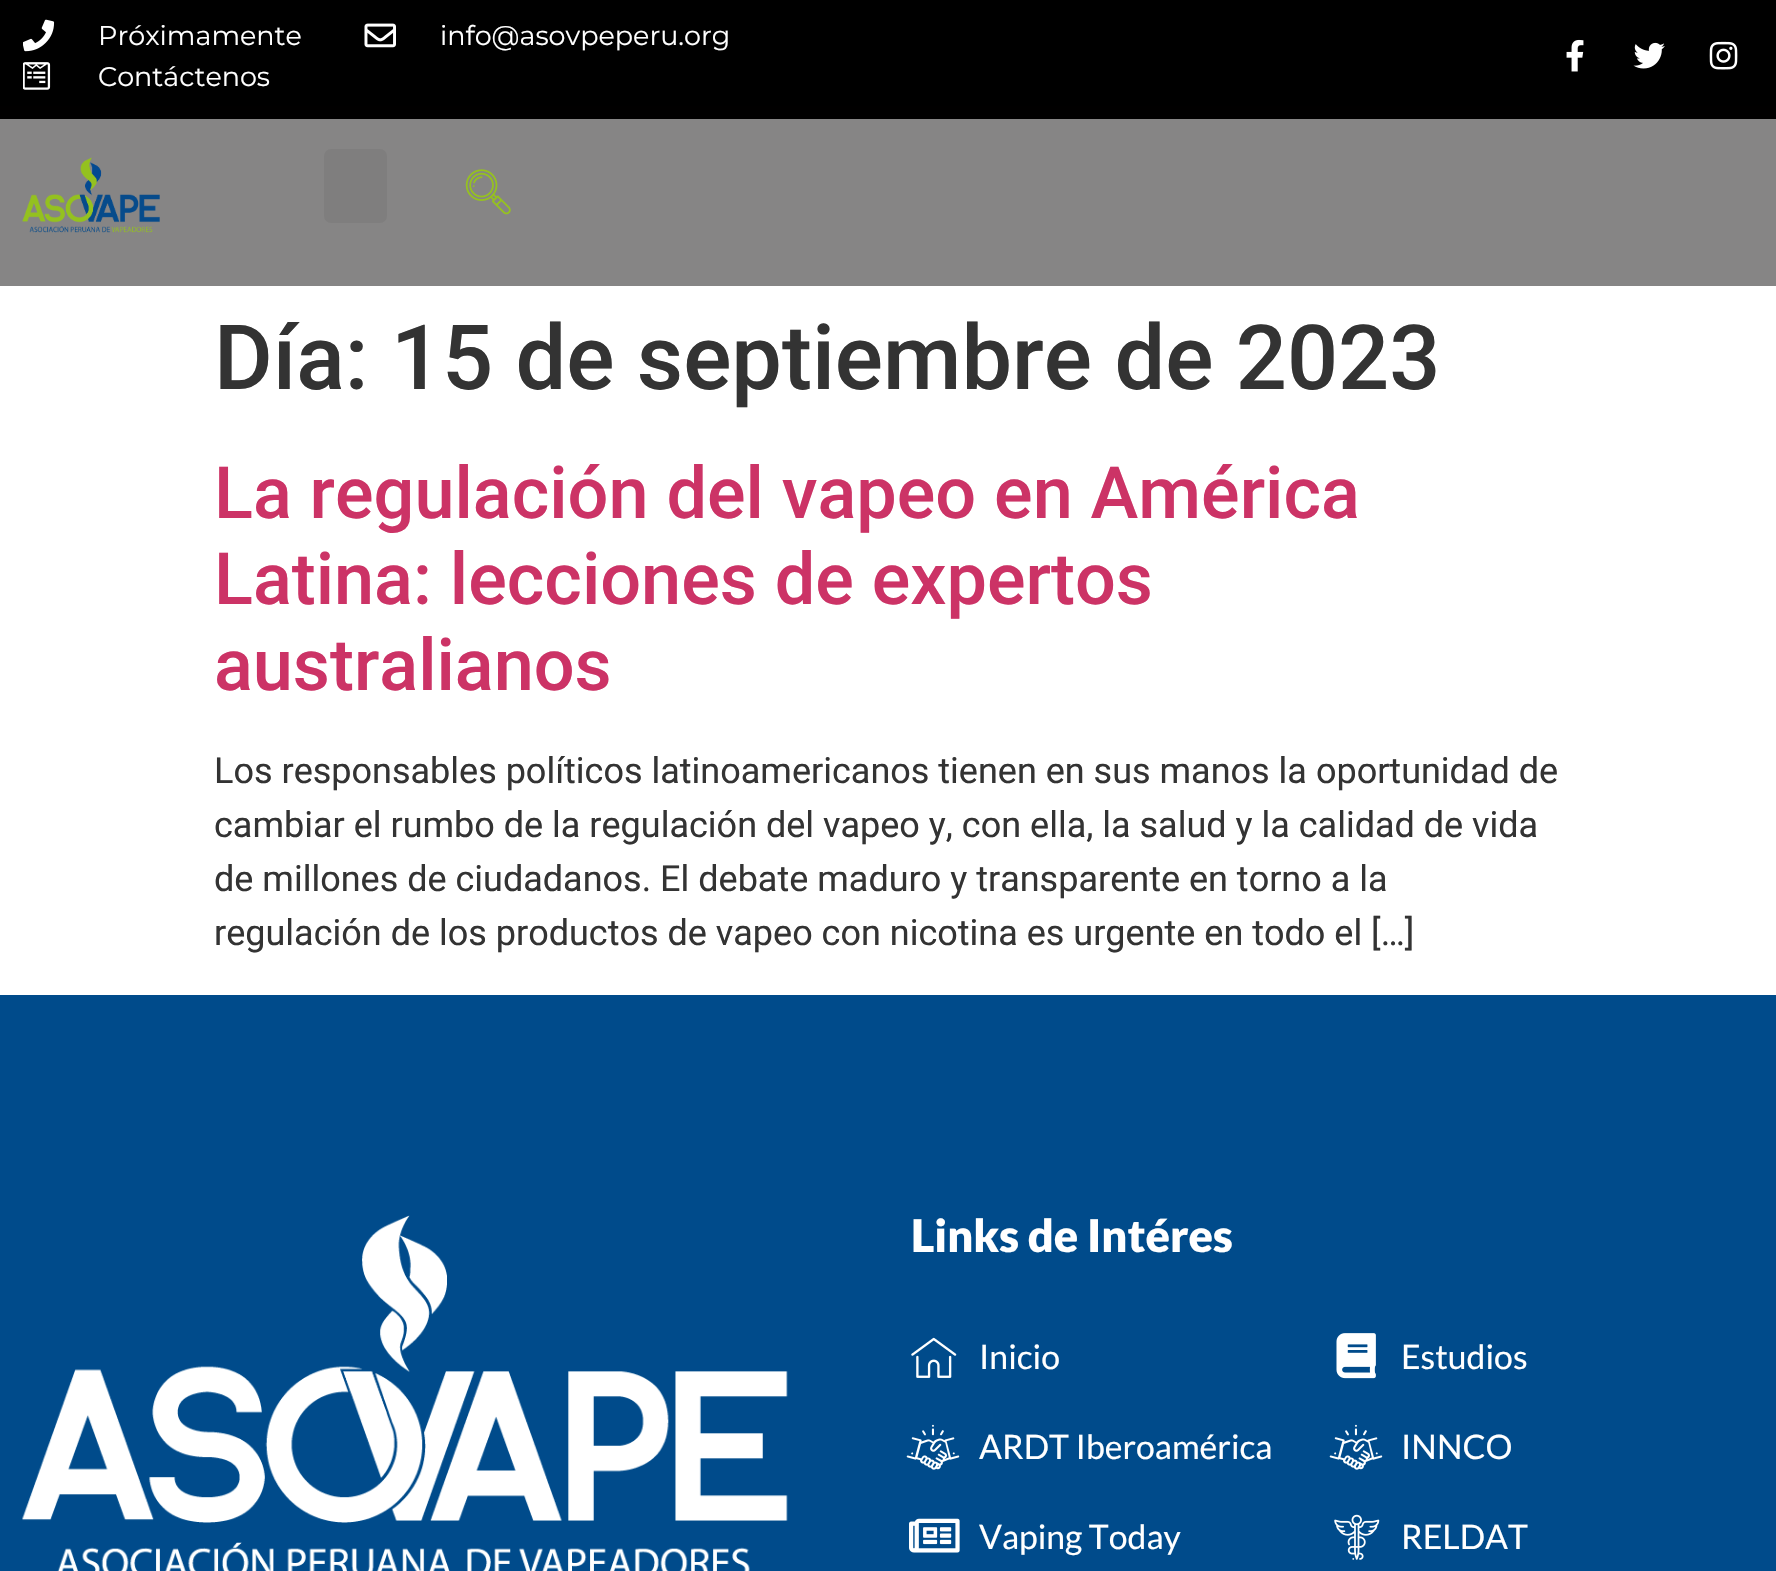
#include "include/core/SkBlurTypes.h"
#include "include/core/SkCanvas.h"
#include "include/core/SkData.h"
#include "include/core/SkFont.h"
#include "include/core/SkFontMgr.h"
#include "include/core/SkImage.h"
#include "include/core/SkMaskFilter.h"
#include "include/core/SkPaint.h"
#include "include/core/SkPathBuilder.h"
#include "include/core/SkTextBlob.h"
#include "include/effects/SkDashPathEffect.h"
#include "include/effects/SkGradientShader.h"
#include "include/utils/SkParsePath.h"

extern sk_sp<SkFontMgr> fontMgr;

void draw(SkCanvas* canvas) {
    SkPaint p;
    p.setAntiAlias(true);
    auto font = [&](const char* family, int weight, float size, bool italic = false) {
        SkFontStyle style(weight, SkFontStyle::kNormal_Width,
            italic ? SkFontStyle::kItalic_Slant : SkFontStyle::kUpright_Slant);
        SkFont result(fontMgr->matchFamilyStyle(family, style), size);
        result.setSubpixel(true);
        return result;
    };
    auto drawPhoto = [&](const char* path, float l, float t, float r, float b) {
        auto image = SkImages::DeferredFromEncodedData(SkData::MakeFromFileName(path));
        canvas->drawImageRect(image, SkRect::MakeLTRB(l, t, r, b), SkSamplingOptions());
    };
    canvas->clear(0xFFFFFFFF);
    {
        const struct { float l, t, r, b; SkColor color; } items[] = {
            {0, 119, 1776, 286, 0xFF868585},
            {0, 0, 1776, 106, 0xFF000000},
            {0, 106, 1776, 119, 0xFF010000},
        };
        for (auto [l, t, r, b, color] : items) {
            p.setColor(color);
            canvas->drawRect(SkRect::MakeLTRB(l, t, r, b), p);
        }
    }
    drawPhoto("media/1.png", 23, 19, 55, 52);
    auto font1 = font("Montserrat", 400, 27);
    p.setColor(0xFFFFFFFF);
    canvas->drawString("Próximamente", 98, 45, font1, p);
    drawPhoto("media/2.png", 364, 23, 396, 48);
    canvas->drawString("info@asovpeperu.org", 440, 45, font1, p);
    drawPhoto("media/3.png", 23, 62, 51, 90);
    canvas->drawString("Contáctenos", 98, 86, font1, p);
    drawPhoto("media/4.png", 1566, 39, 1584, 72);
    drawPhoto("media/5.png", 1633, 42, 1665, 69);
    drawPhoto("media/6.png", 1709, 41, 1738, 70);
    drawPhoto("media/7.png", 22, 157, 160, 233);
    p.setColor(0xFF7F7E7E);
    canvas->drawRoundRect(SkRect::MakeLTRB(324, 149, 387, 223), 7, 7, p);
    drawPhoto("media/8.png", 465, 169, 511, 215);
    auto font2 = font("Roboto", 500, 90);
    p.setColor(0xFF333333);
    canvas->drawString("Día: 15 de septiembre de 2023", 214, 389, font2, p);
    auto font3 = font("Roboto", 500, 72);
    p.setColor(0xFFCC3366);
    {
        const struct { const char* s; float x, y; } items[] = {
            {"La regulación del vapeo en América", 214, 518},
            {"Latina: lecciones de expertos", 214, 604},
            {"australianos", 214, 690},
        };
        for (auto [s, x, y] : items) {
            canvas->drawString(s, x, y, font3, p);
        }
    }
    auto font4 = font("Roboto", 400, 36);
    p.setColor(0xFF333333);
    {
        const struct { const char* s; float x, y; } items[] = {
            {"Los responsables políticos latinoamericanos tienen en sus manos la oportunidad de", 214, 783},
            {"cambiar el rumbo de la regulación del vapeo y, con ella, la salud y la calidad de vida", 214, 837},
            {"de millones de ciudadanos. El debate maduro y transparente en torno a la", 214, 891},
            {"regulación de los productos de vapeo con nicotina es urgente en todo el […]", 214, 945},
        };
        for (auto [s, x, y] : items) {
            canvas->drawString(s, x, y, font4, p);
        }
    }
    p.setColor(0xFF004B8B);
    canvas->drawRect(SkRect::MakeLTRB(0, 995, 1776, 1571), p);
    drawPhoto("media/9.png", 22, 1215, 788, 1571);
    auto font5 = font("Lato", 900, 45);
    p.setColor(0xFFFFFFFF);
    canvas->drawString("Links de Intéres", 911, 1252, font5, p);
    drawPhoto("media/10.png", 911, 1337, 957, 1378);
    auto font6 = font("Lato", 400, 33.75f);
    canvas->drawString("Inicio", 979, 1369, font6, p);
    drawPhoto("media/11.png", 906, 1424, 960, 1470);
    canvas->drawString("ARDT Iberoamérica", 979, 1459, font6, p);
    drawPhoto("media/12.png", 909, 1518, 960, 1553);
    canvas->drawString("Vaping Today", 979, 1549, font6, p);
    drawPhoto("media/13.png", 1336, 1333, 1376, 1379);
    canvas->drawString("Estudios", 1401, 1369, font6, p);
    drawPhoto("media/11.png", 1329, 1424, 1383, 1470);
    canvas->drawString("INNCO", 1401, 1459, font6, p);
    drawPhoto("media/14.png", 1334, 1514, 1380, 1560);
    canvas->drawString("RELDAT", 1401, 1549, font6, p);
}
